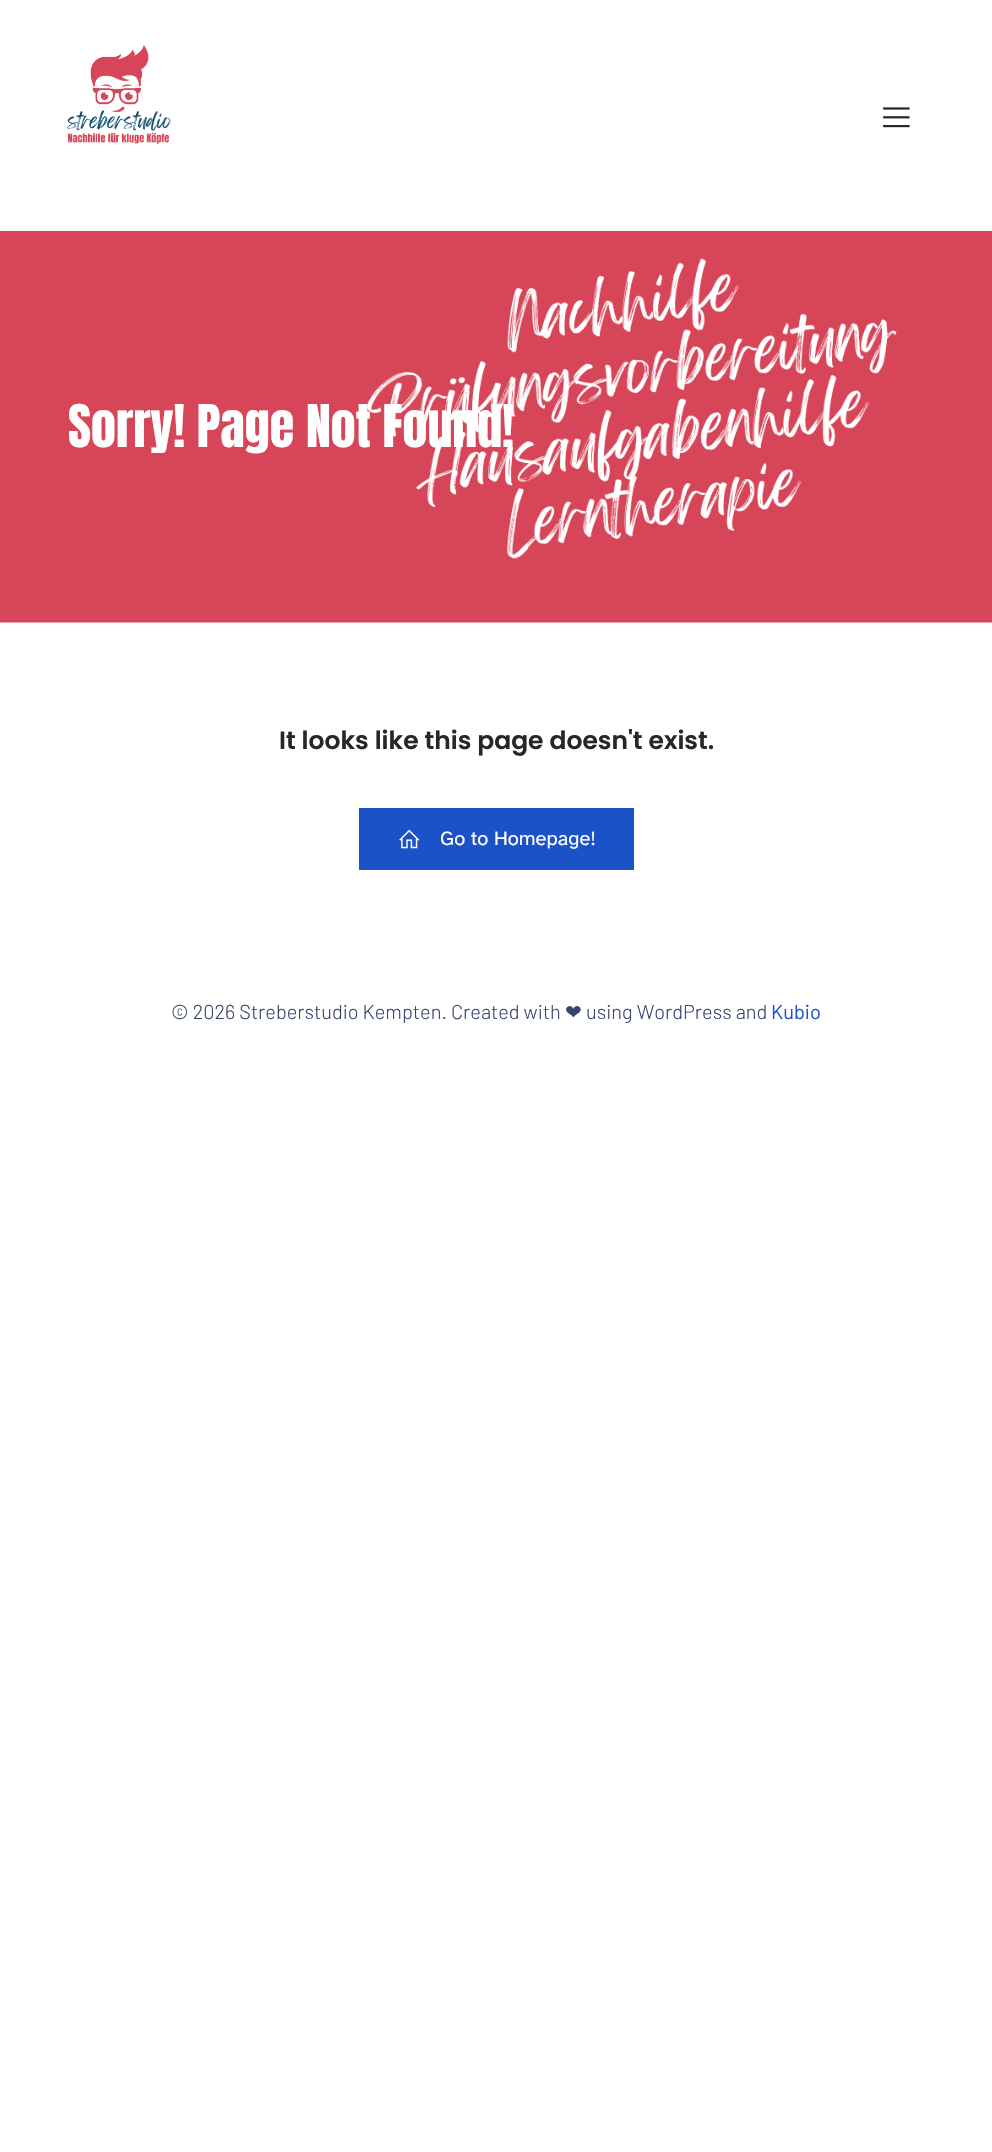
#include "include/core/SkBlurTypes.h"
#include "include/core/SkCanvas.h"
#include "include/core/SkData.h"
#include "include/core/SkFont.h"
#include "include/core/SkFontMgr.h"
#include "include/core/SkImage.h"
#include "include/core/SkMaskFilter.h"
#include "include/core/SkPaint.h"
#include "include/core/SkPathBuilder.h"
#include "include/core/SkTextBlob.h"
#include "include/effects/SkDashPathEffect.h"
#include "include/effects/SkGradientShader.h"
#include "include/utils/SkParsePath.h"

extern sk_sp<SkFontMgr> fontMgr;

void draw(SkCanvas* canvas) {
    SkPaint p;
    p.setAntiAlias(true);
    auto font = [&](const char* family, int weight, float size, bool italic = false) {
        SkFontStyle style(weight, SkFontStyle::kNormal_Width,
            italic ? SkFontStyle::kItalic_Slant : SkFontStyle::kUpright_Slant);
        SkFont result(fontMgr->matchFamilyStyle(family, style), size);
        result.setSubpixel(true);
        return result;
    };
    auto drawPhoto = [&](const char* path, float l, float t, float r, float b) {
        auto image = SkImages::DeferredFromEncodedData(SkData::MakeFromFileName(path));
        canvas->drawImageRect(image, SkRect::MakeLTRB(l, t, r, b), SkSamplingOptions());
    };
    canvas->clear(0xFFFFFFFF);
    drawPhoto("media/1.png", 67, 45, 171, 145);
    drawPhoto("media/2.png", 883, 107, 910, 128);
    drawPhoto("media/3.png", 0, 231, 992, 623);
    auto font1 = font("Anton", 400, 50);
    p.setColor(0xFFFFFFFF);
    canvas->drawString("Sorry! Page Not Found!", 68, 447, font1, p);
    auto font2 = font("Poppins", 600, 25);
    p.setColor(0xFF27272A);
    canvas->drawString("It looks like this page doesn't exist.", 279, 749, font2, p);
    p.setColor(0xFF1B52C8);
    canvas->drawRect(SkRect::MakeLTRB(359, 808, 634, 870), p);
    drawPhoto("media/4.png", 399, 829, 420, 849);
    auto font3 = font("Atkinson Hyperlegible", 400, 20);
    p.setColor(0xFFFFFFFF);
    canvas->drawString("Go to Homepage!", 440, 845, font3, p);
    auto font4 = font("Barlow", 300, 20);
    p.setColor(0xFF374470);
    canvas->drawString("© 2026 Streberstudio Kempten. Created with", 171, 1019, font4, p);
    auto font5 = font("DejaVu Sans", 400, 20);
    canvas->drawString("❤", 565, 1019, font5, p);
    canvas->drawString("using WordPress and", 586, 1019, font4, p);
    auto font6 = font("Barlow", 400, 20);
    p.setColor(0xFF1B52C8);
    canvas->drawString("Kubio", 771, 1019, font6, p);
}
